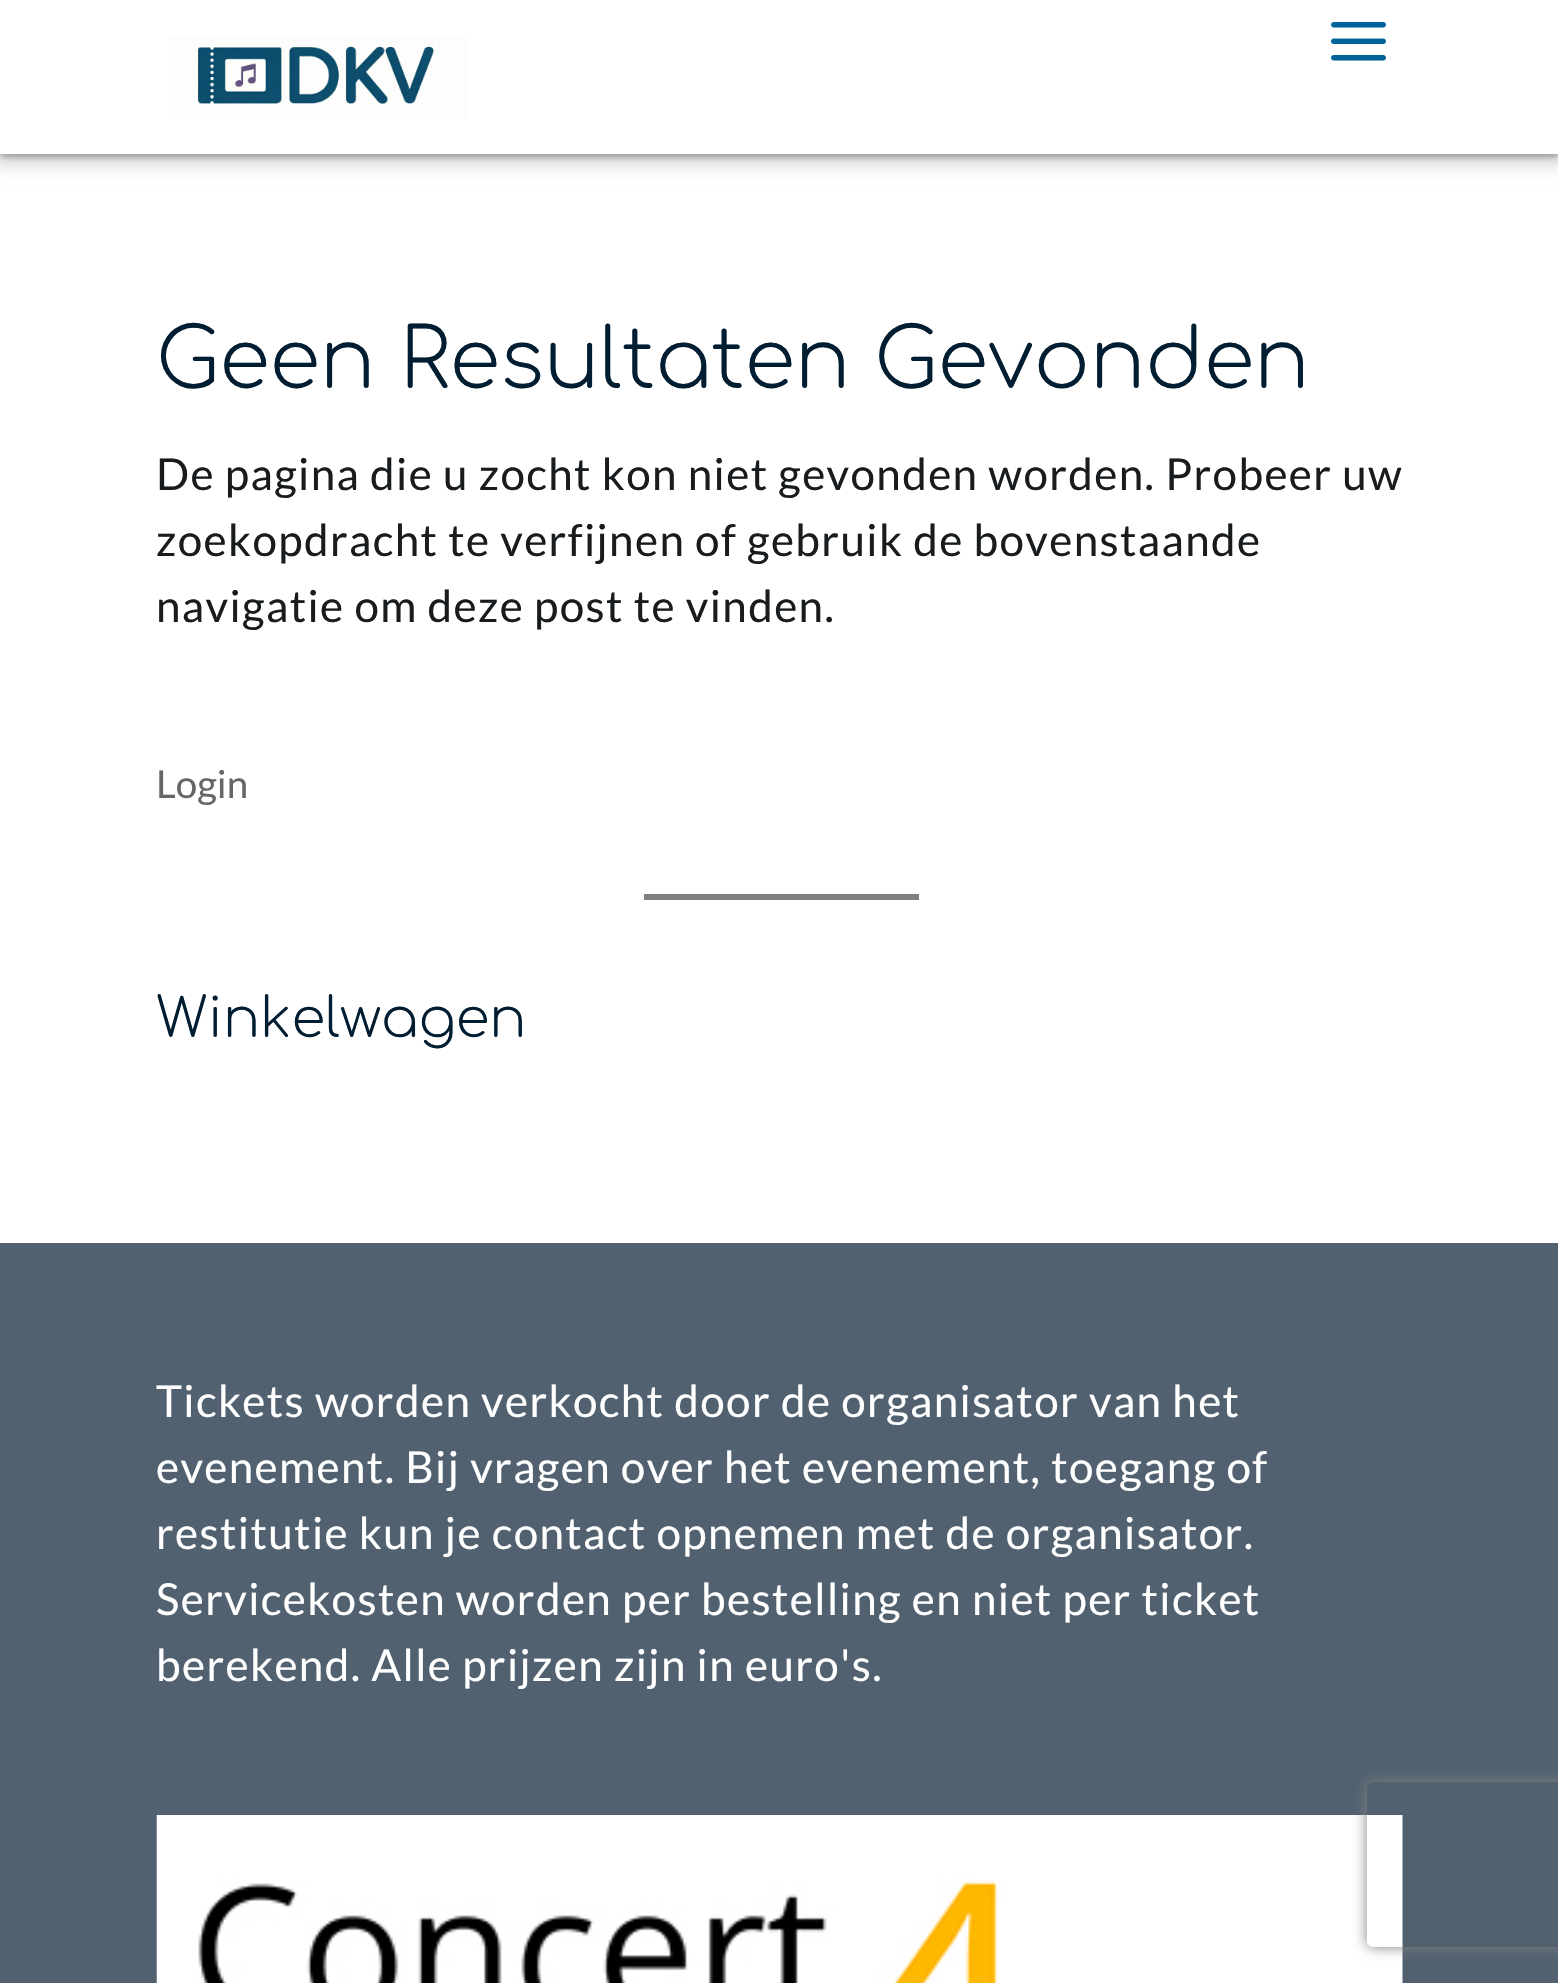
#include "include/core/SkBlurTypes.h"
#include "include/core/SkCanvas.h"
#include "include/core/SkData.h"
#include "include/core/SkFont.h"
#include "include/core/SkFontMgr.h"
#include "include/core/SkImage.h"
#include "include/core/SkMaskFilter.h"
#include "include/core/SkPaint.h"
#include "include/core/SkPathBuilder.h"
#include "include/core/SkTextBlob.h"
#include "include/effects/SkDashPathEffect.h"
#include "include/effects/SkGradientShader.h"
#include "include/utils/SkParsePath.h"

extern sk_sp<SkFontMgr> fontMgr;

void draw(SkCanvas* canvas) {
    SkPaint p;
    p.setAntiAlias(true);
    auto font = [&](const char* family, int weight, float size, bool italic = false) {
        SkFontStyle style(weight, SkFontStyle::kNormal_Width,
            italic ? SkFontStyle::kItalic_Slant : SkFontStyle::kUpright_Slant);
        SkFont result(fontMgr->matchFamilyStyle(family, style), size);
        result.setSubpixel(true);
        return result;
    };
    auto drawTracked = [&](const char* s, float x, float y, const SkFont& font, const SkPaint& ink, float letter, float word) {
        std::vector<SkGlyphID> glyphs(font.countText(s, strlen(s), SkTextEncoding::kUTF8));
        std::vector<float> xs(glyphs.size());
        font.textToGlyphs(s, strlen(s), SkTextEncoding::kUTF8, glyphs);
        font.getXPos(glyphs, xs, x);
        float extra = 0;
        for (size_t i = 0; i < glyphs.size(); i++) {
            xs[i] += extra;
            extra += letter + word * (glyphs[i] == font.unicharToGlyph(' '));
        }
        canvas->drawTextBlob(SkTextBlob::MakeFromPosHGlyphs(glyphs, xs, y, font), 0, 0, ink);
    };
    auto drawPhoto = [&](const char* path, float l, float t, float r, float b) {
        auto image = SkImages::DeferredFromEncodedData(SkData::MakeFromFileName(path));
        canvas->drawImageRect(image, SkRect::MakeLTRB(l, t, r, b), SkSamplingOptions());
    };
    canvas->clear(0xFFFFFFFF);
    p.setColor(0x26000000);
    p.setMaskFilter(SkMaskFilter::MakeBlur(kNormal_SkBlurStyle, 8));
    canvas->drawRect(SkRect::MakeLTRB(-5, 0, 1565, 165), p);
    p.setMaskFilter(nullptr);
    p.setColor(0x4D000000);
    p.setMaskFilter(SkMaskFilter::MakeBlur(kNormal_SkBlurStyle, 3));
    canvas->drawRect(SkRect::MakeLTRB(0, 3, 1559, 157), p);
    p.setMaskFilter(nullptr);
    p.setColor(0xFFFFFFFF);
    canvas->drawRect(SkRect::MakeLTRB(0, 0, 1558, 154), p);
    drawPhoto("media/1.png", 168, 36, 467, 118);
    drawPhoto("media/2.png", 1331, 22, 1386, 61);
    auto font1 = font("Comfortaa", 300, 82.5f);
    p.setColor(0xFF001D32);
    canvas->drawString("Geen Resultaten Gevonden", 156, 388, font1, p);
    auto font2 = font("Lato", 400, 44);
    p.setColor(0xFF191C1E);
    {
        const struct { const char* s; float x, y; } items[] = {
            {"De pagina die u zocht kon niet gevonden worden. Probeer uw", 156, 490},
            {"zoekopdracht te verfijnen of gebruik de bovenstaande", 156, 556},
            {"navigatie om deze post te vinden.", 156, 622},
        };
        for (auto [s, x, y] : items) {
            drawTracked(s, x, y, font2, p, 1.38f, 0);
        }
    }
    auto font3 = font("Lato", 400, 38.5f);
    p.setColor(0xFF666666);
    canvas->drawString("Login", 156, 798, font3, p);
    p.setColor(0xFF808080);
    canvas->drawRect(SkRect::MakeLTRB(644, 894, 919, 900), p);
    auto font4 = font("Comfortaa", 300, 55);
    p.setColor(0xFF001D32);
    canvas->drawString("Winkelwagen", 156, 1037, font4, p);
    p.setColor(0xFF516170);
    canvas->drawRect(SkRect::MakeLTRB(0, 1243, 1558, 1983), p);
    p.setColor(0xFFFFFFFF);
    {
        const struct { const char* s; float x, y; } items[] = {
            {"Tickets worden verkocht door de organisator van het", 156, 1417},
            {"evenement. Bij vragen over het evenement, toegang of", 156, 1483},
            {"restitutie kun je contact opnemen met de organisator.", 156, 1549},
            {"Servicekosten worden per bestelling en niet per ticket", 156, 1615},
            {"berekend. Alle prijzen zijn in euro's.", 156, 1681},
        };
        for (auto [s, x, y] : items) {
            drawTracked(s, x, y, font2, p, 1.38f, 0);
        }
    }
    drawPhoto("media/3.png", 156, 1815, 1403, 1983);
    canvas->save();
    canvas->clipPath(SkPathBuilder(SkPathFillType::kEvenOdd).moveTo(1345, 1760).lineTo(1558, 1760).lineTo(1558, 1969).lineTo(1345, 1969).close().moveTo(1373, 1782).lineTo(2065, 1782).cubicTo(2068.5f, 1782, 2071, 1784.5f, 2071, 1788).lineTo(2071, 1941).cubicTo(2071, 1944.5f, 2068.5f, 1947, 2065, 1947).lineTo(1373, 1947).cubicTo(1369.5f, 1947, 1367, 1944.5f, 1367, 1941).lineTo(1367, 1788).cubicTo(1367, 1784.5f, 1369.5f, 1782, 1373, 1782).close().detach(), true);
    p.setColor(0xFF808080);
    p.setMaskFilter(SkMaskFilter::MakeBlur(kNormal_SkBlurStyle, 7));
    canvas->drawRoundRect(SkRect::MakeLTRB(1367, 1782, 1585, 1947), 6, 6, p);
    p.setMaskFilter(nullptr);
    canvas->restore();
}
